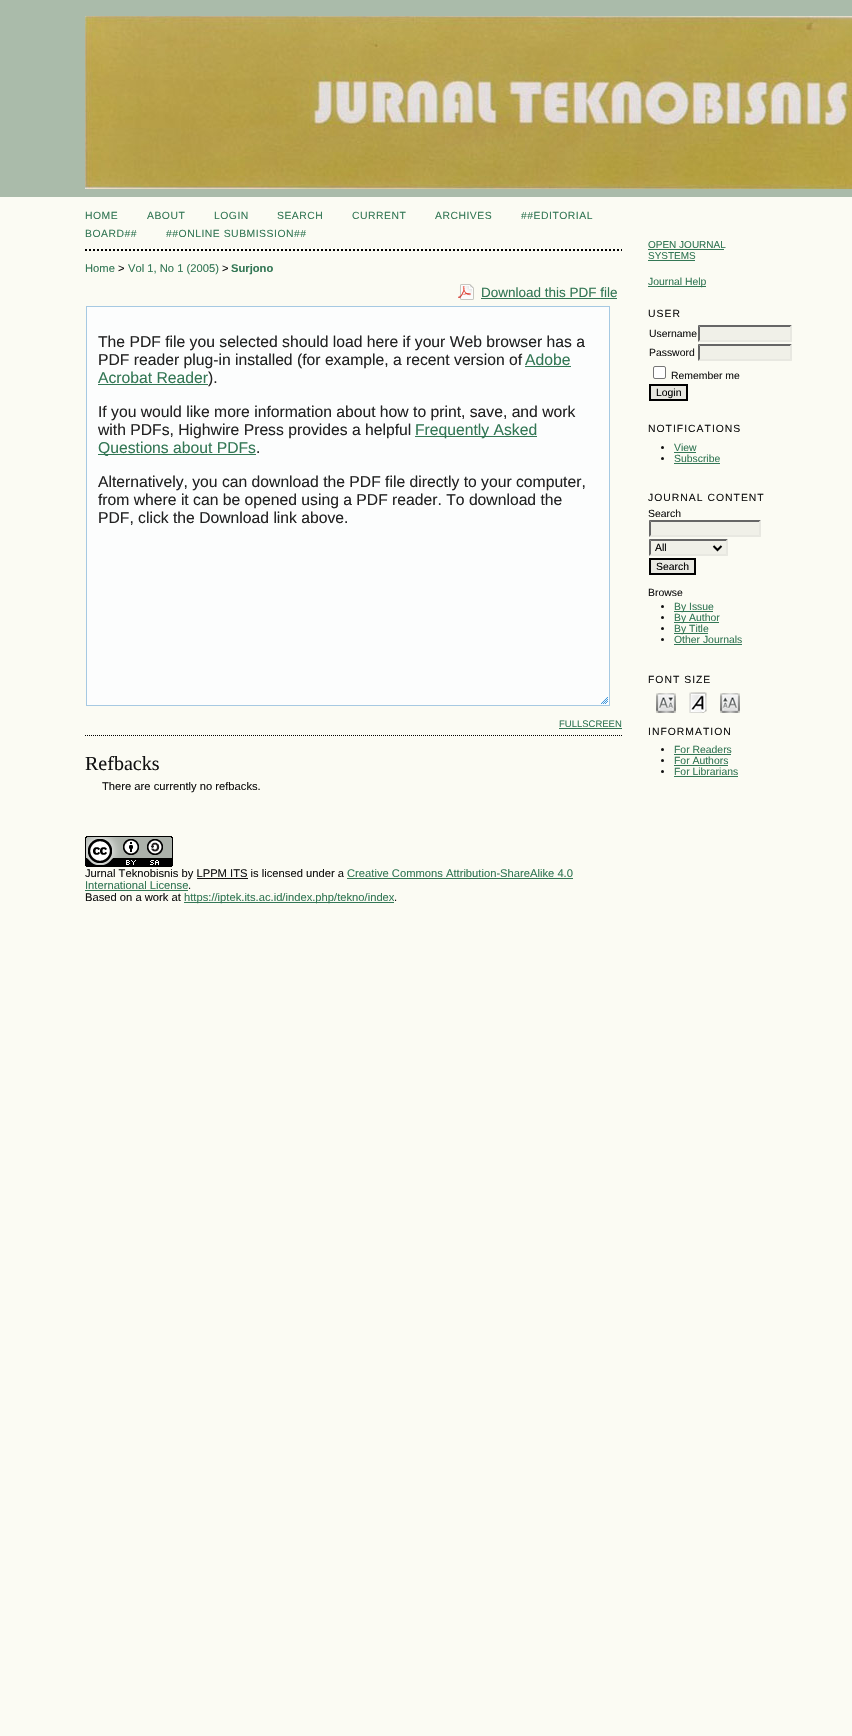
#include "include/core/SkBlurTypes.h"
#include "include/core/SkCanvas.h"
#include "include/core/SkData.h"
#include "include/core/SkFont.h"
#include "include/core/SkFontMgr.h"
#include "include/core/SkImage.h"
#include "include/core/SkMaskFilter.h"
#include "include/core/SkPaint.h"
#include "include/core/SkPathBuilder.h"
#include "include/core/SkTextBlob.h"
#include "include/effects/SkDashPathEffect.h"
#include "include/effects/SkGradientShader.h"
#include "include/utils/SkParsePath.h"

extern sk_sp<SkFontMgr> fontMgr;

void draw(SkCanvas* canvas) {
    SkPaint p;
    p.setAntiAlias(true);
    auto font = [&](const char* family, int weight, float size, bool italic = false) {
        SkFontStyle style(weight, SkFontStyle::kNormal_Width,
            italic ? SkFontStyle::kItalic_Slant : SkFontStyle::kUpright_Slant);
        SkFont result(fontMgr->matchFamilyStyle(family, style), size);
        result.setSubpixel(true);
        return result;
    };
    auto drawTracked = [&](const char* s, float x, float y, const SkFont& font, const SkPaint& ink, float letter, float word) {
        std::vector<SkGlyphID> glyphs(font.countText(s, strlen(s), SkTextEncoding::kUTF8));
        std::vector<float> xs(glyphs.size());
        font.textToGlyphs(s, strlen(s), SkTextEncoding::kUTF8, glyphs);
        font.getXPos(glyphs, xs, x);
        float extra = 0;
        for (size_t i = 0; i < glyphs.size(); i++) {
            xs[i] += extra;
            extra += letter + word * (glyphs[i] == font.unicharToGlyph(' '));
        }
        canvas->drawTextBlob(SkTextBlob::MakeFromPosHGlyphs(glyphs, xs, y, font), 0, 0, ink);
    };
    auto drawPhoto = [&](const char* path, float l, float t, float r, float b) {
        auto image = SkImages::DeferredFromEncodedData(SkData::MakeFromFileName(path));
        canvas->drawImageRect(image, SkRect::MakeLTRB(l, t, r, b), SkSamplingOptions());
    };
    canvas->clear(0xFFFBFBF3);
    p.setColor(0xFFAABBAA);
    canvas->drawRect(SkRect::MakeLTRB(0, 0, 852, 197), p);
    drawPhoto("media/1.png", 85, 16, 852, 189);
    p.setStyle(SkPaint::kStroke_Style);
    p.setStrokeWidth(2);
    p.setColor(0xFF000000);
    p.setPathEffect(SkDashPathEffect::Make({{2, 2}}, 0));
    canvas->drawPath(SkPathBuilder().moveTo(85, 250).lineTo(622, 250).detach(), p);
    p.setPathEffect(nullptr);
    auto font1 = font("Liberation Sans", 400, 10.4f);
    p.setStyle(SkPaint::kFill_Style);
    p.setColor(0xFF337755);
    {
        const struct { const char* s; float x, y; } items[] = {
            {"HOME", 85, 219},
            {"ABOUT", 147, 219},
            {"LOGIN", 214, 219},
            {"SEARCH", 277, 219},
            {"CURRENT", 352, 219},
            {"ARCHIVES", 435, 219},
            {"##EDITORIAL", 521, 219},
            {"BOARD##", 85, 237},
            {"##ONLINE SUBMISSION##", 166, 237},
        };
        for (auto [s, x, y] : items) {
            drawTracked(s, x, y, font1, p, 0.5f, 0);
        }
    }
    auto font2 = font("Liberation Sans", 400, 11.2f);
    canvas->drawString("Home", 85, 272, font2, p);
    p.setColor(0xFF111111);
    canvas->drawString(">", 118, 272, font2, p);
    p.setColor(0xFF337755);
    canvas->drawString("Vol 1, No 1 (2005)", 128, 272, font2, p);
    p.setColor(0xFF111111);
    canvas->drawString(">", 222, 272, font2, p);
    auto font3 = font("Liberation Sans", 700, 11.2f);
    p.setColor(0xFF337755);
    canvas->drawString("Surjono", 231, 272, font3, p);
    drawPhoto("media/2.png", 458, 284, 474, 300);
    auto font4 = font("Liberation Sans", 400, 13.5f);
    canvas->drawString("Download this PDF file", 481, 297, font4, p);
    canvas->drawRect(SkRect::MakeLTRB(481, 298, 617, 299), p);
    p.setColor(0xFFFCFDFD);
    canvas->drawRect(SkRect::MakeLTRB(86.5f, 306.5f, 609.5f, 705.5f), p);
    p.setStyle(SkPaint::kStroke_Style);
    p.setStrokeWidth(1);
    p.setColor(0xFFA6C9E2);
    canvas->drawRect(SkRect::MakeLTRB(86.5f, 306.5f, 609.5f, 705.5f), p);
    auto font5 = font("Liberation Sans", 400, 15.7f);
    p.setStyle(SkPaint::kFill_Style);
    p.setColor(0xFF222222);
    canvas->drawString("The PDF file you selected should load here if your Web browser has a", 98, 347, font5, p);
    canvas->drawString("PDF reader plug-in installed (for example, a recent version of", 98, 365, font5, p);
    p.setColor(0xFF337755);
    canvas->drawString("Adobe", 525, 365, font5, p);
    canvas->drawRect(SkRect::MakeLTRB(525, 366, 571, 367), p);
    canvas->drawString("Acrobat Reader", 98, 383, font5, p);
    canvas->drawRect(SkRect::MakeLTRB(98, 384, 208, 385), p);
    p.setColor(0xFF222222);
    {
        const struct { const char* s; float x, y; } items[] = {
            {").", 208, 383},
            {"If you would like more information about how to print, save, and work", 98, 417},
            {"with PDFs, Highwire Press provides a helpful", 98, 435},
        };
        for (auto [s, x, y] : items) {
            canvas->drawString(s, x, y, font5, p);
        }
    }
    p.setColor(0xFF337755);
    canvas->drawRect(SkRect::MakeLTRB(415, 436, 537, 437), p);
    canvas->drawString("Frequently Asked", 415, 435, font5, p);
    canvas->drawRect(SkRect::MakeLTRB(98, 454, 256, 455), p);
    canvas->drawString("Questions about PDFs", 98, 453, font5, p);
    p.setColor(0xFF222222);
    {
        const struct { const char* s; float x, y; } items[] = {
            {".", 256, 453},
            {"Alternatively, you can download the PDF file directly to your computer,", 98, 487},
            {"from where it can be opened using a PDF reader. To download the", 98, 505},
            {"PDF, click the Download link above.", 98, 523},
        };
        for (auto [s, x, y] : items) {
            canvas->drawString(s, x, y, font5, p);
        }
    }
    drawPhoto("media/3.png", 601, 697, 608, 704);
    auto font6 = font("Liberation Sans", 400, 9.5f);
    p.setColor(0xFF337755);
    canvas->drawString("FULLSCREEN", 559, 727, font6, p);
    canvas->drawRect(SkRect::MakeLTRB(559, 728, 622, 729), p);
    p.setStyle(SkPaint::kStroke_Style);
    p.setColor(0xFF000000);
    p.setPathEffect(SkDashPathEffect::Make({{1, 1}}, 0));
    canvas->drawPath(SkPathBuilder().moveTo(85, 735.5f).lineTo(622, 735.5f).detach(), p);
    p.setPathEffect(nullptr);
    auto font7 = font("Liberation Serif", 400, 20);
    p.setStyle(SkPaint::kFill_Style);
    p.setColor(0xFF111111);
    canvas->drawString("Refbacks", 85, 770, font7, p);
    canvas->drawString("There are currently no refbacks.", 102, 790, font2, p);
    drawPhoto("media/4.png", 85, 836, 173, 867);
    canvas->drawString("Jurnal Teknobisnis by LPPM ITS is licensed under a", 85, 877, font2, p);
    p.setColor(0xFF337755);
    canvas->drawString("Creative Commons Attribution-ShareAlike 4.0", 347, 877, font2, p);
    canvas->drawRect(SkRect::MakeLTRB(347, 878, 573, 879), p);
    p.setColor(0xFF111111);
    canvas->drawRect(SkRect::MakeLTRB(197, 878, 248, 879), p);
    p.setColor(0xFF337755);
    canvas->drawString("International License", 85, 889, font2, p);
    canvas->drawRect(SkRect::MakeLTRB(85, 890, 188, 891), p);
    p.setColor(0xFF111111);
    canvas->drawString(".", 188, 889, font2, p);
    canvas->drawString("Based on a work at", 85, 901, font2, p);
    p.setColor(0xFF337755);
    canvas->drawRect(SkRect::MakeLTRB(184, 902, 394, 903), p);
    canvas->drawString("https://iptek.its.ac.id/index.php/tekno/index", 184, 901, font2, p);
    p.setColor(0xFF111111);
    canvas->drawString(".", 394, 901, font2, p);
    auto font8 = font("Liberation Sans", 400, 10);
    p.setColor(0xFF337755);
    canvas->drawString("OPEN JOURNAL", 648, 248, font8, p);
    canvas->drawRect(SkRect::MakeLTRB(648, 249, 724, 250), p);
    canvas->drawString("SYSTEMS", 648, 259, font8, p);
    canvas->drawRect(SkRect::MakeLTRB(648, 260, 695, 261), p);
    canvas->drawRect(SkRect::MakeLTRB(648, 286, 706, 287), p);
    canvas->drawString("Journal Help", 648, 285, font1, p);
    p.setColor(0xFF111111);
    drawTracked("USER", 648, 317, font1, p, 1, 0);
    canvas->drawString("Username", 649, 337, font1, p);
    p.setColor(0xFFF0F0E8);
    canvas->drawRect(SkRect::MakeLTRB(698, 325, 792, 342), p);
    p.setColor(0xFF666666);
    canvas->drawPath(SkPathBuilder().moveTo(698, 325).lineTo(792, 325).lineTo(790, 327).lineTo(700, 327).close().detach(), p);
    p.setColor(0xFFE8E8E1);
    canvas->drawPath(SkPathBuilder().moveTo(792, 325).lineTo(792, 342).lineTo(790, 340).lineTo(790, 327).close().detach(), p);
    canvas->drawPath(SkPathBuilder().moveTo(792, 342).lineTo(698, 342).lineTo(700, 340).lineTo(790, 340).close().detach(), p);
    p.setColor(0xFF666666);
    canvas->drawPath(SkPathBuilder().moveTo(698, 342).lineTo(698, 325).lineTo(700, 327).lineTo(700, 340).close().detach(), p);
    p.setColor(0xFF111111);
    canvas->drawString("Password", 649, 356, font1, p);
    p.setColor(0xFFF0F0E8);
    canvas->drawRect(SkRect::MakeLTRB(698, 344, 792, 361), p);
    p.setColor(0xFF666666);
    canvas->drawPath(SkPathBuilder().moveTo(698, 344).lineTo(792, 344).lineTo(790, 346).lineTo(700, 346).close().detach(), p);
    p.setColor(0xFFE8E8E1);
    canvas->drawPath(SkPathBuilder().moveTo(792, 344).lineTo(792, 361).lineTo(790, 359).lineTo(790, 346).close().detach(), p);
    canvas->drawPath(SkPathBuilder().moveTo(792, 361).lineTo(698, 361).lineTo(700, 359).lineTo(790, 359).close().detach(), p);
    p.setColor(0xFF666666);
    canvas->drawPath(SkPathBuilder().moveTo(698, 361).lineTo(698, 344).lineTo(700, 346).lineTo(700, 359).close().detach(), p);
    p.setColor(0xFFFFFFFF);
    canvas->drawRoundRect(SkRect::MakeLTRB(653.5f, 366.5f, 665.5f, 378.5f), 1.5f, 1.5f, p);
    p.setStyle(SkPaint::kStroke_Style);
    p.setColor(0xFF767676);
    canvas->drawRoundRect(SkRect::MakeLTRB(653.5f, 366.5f, 665.5f, 378.5f), 1.5f, 1.5f, p);
    p.setStyle(SkPaint::kFill_Style);
    p.setColor(0xFF111111);
    canvas->drawString("Remember me", 671, 379, font1, p);
    p.setColor(0xFFE8E8E1);
    canvas->drawRect(SkRect::MakeLTRB(650, 385, 687, 400), p);
    p.setStyle(SkPaint::kStroke_Style);
    p.setStrokeWidth(2);
    p.setColor(0xFF000000);
    canvas->drawRect(SkRect::MakeLTRB(650, 385, 687, 400), p);
    p.setStyle(SkPaint::kFill_Style);
    canvas->drawString("Login", 656, 396, font1, p);
    p.setColor(0xFF111111);
    drawTracked("NOTIFICATIONS", 648, 432, font1, p, 1, 0);
    canvas->drawCircle(662.5f, 447.5f, 1.5f, p);
    p.setColor(0xFF337755);
    canvas->drawString("View", 674, 451, font1, p);
    canvas->drawRect(SkRect::MakeLTRB(674, 452, 696, 453), p);
    p.setColor(0xFF111111);
    canvas->drawCircle(662.5f, 458.5f, 1.5f, p);
    p.setColor(0xFF337755);
    canvas->drawString("Subscribe", 674, 462, font1, p);
    canvas->drawRect(SkRect::MakeLTRB(674, 463, 720, 464), p);
    p.setColor(0xFF111111);
    drawTracked("JOURNAL CONTENT", 648, 501, font1, p, 1, 0);
    canvas->drawString("Search", 648, 517, font1, p);
    p.setColor(0xFFF0F0E8);
    canvas->drawRect(SkRect::MakeLTRB(649, 520, 761, 537), p);
    p.setColor(0xFF666666);
    canvas->drawPath(SkPathBuilder().moveTo(649, 520).lineTo(761, 520).lineTo(759, 522).lineTo(651, 522).close().detach(), p);
    p.setColor(0xFFE8E8E1);
    canvas->drawPath(SkPathBuilder().moveTo(761, 520).lineTo(761, 537).lineTo(759, 535).lineTo(759, 522).close().detach(), p);
    canvas->drawPath(SkPathBuilder().moveTo(761, 537).lineTo(649, 537).lineTo(651, 535).lineTo(759, 535).close().detach(), p);
    p.setColor(0xFF666666);
    canvas->drawPath(SkPathBuilder().moveTo(649, 537).lineTo(649, 520).lineTo(651, 522).lineTo(651, 535).close().detach(), p);
    p.setColor(0xFFF0F0E8);
    canvas->drawRect(SkRect::MakeLTRB(649, 539, 728, 556), p);
    p.setColor(0xFF666666);
    canvas->drawPath(SkPathBuilder().moveTo(649, 539).lineTo(728, 539).lineTo(726, 541).lineTo(651, 541).close().detach(), p);
    p.setColor(0xFFE8E8E1);
    canvas->drawPath(SkPathBuilder().moveTo(728, 539).lineTo(728, 556).lineTo(726, 554).lineTo(726, 541).close().detach(), p);
    canvas->drawPath(SkPathBuilder().moveTo(728, 556).lineTo(649, 556).lineTo(651, 554).lineTo(726, 554).close().detach(), p);
    p.setColor(0xFF666666);
    canvas->drawPath(SkPathBuilder().moveTo(649, 556).lineTo(649, 539).lineTo(651, 541).lineTo(651, 554).close().detach(), p);
    p.setStyle(SkPaint::kStroke_Style);
    p.setColor(0xFF000000);
    canvas->drawPath(SkPathBuilder().moveTo(713.5f, 546).lineTo(717.5f, 550).lineTo(721.5f, 546).detach(), p);
    p.setStyle(SkPaint::kFill_Style);
    canvas->drawString("All", 655, 551, font1, p);
    p.setColor(0xFFE8E8E1);
    canvas->drawRect(SkRect::MakeLTRB(650, 559, 695, 574), p);
    p.setStyle(SkPaint::kStroke_Style);
    p.setColor(0xFF000000);
    canvas->drawRect(SkRect::MakeLTRB(650, 559, 695, 574), p);
    p.setStyle(SkPaint::kFill_Style);
    canvas->drawString("Search", 656, 570, font1, p);
    p.setColor(0xFF111111);
    canvas->drawString("Browse", 648, 596, font1, p);
    canvas->drawCircle(662.5f, 606.5f, 1.5f, p);
    p.setColor(0xFF337755);
    canvas->drawRect(SkRect::MakeLTRB(674, 611, 713, 612), p);
    canvas->drawString("By Issue", 674, 610, font1, p);
    p.setColor(0xFF111111);
    canvas->drawCircle(662.5f, 617.5f, 1.5f, p);
    p.setColor(0xFF337755);
    canvas->drawRect(SkRect::MakeLTRB(674, 622, 719, 623), p);
    canvas->drawString("By Author", 674, 621, font1, p);
    p.setColor(0xFF111111);
    canvas->drawCircle(662.5f, 628.5f, 1.5f, p);
    p.setColor(0xFF337755);
    canvas->drawRect(SkRect::MakeLTRB(674, 633, 708, 634), p);
    canvas->drawString("By Title", 674, 632, font1, p);
    p.setColor(0xFF111111);
    canvas->drawCircle(662.5f, 639.5f, 1.5f, p);
    p.setColor(0xFF337755);
    canvas->drawString("Other Journals", 674, 643, font1, p);
    canvas->drawRect(SkRect::MakeLTRB(674, 644, 742, 645), p);
    p.setColor(0xFF111111);
    drawTracked("FONT SIZE", 648, 683, font1, p, 1, 0);
    drawPhoto("media/5.png", 656, 693, 676, 713);
    drawPhoto("media/6.png", 689, 692, 707, 713);
    drawPhoto("media/7.png", 720, 693, 740, 713);
    drawTracked("INFORMATION", 648, 735, font1, p, 1, 0);
    canvas->drawCircle(662.5f, 749.5f, 1.5f, p);
    p.setColor(0xFF337755);
    canvas->drawString("For Readers", 674, 753, font1, p);
    canvas->drawRect(SkRect::MakeLTRB(674, 754, 731, 755), p);
    p.setColor(0xFF111111);
    canvas->drawCircle(662.5f, 760.5f, 1.5f, p);
    p.setColor(0xFF337755);
    canvas->drawString("For Authors", 674, 764, font1, p);
    canvas->drawRect(SkRect::MakeLTRB(674, 765, 728, 766), p);
    p.setColor(0xFF111111);
    canvas->drawCircle(662.5f, 771.5f, 1.5f, p);
    p.setColor(0xFF337755);
    canvas->drawString("For Librarians", 674, 775, font1, p);
    canvas->drawRect(SkRect::MakeLTRB(674, 776, 738, 777), p);
}
